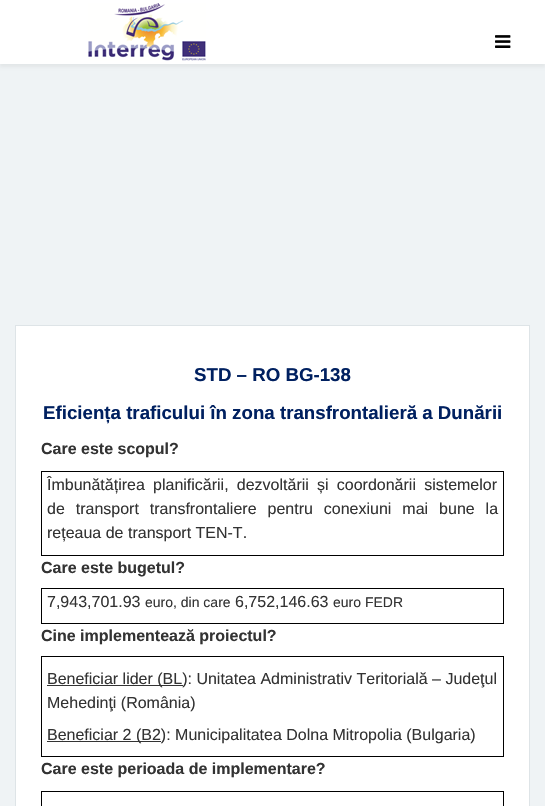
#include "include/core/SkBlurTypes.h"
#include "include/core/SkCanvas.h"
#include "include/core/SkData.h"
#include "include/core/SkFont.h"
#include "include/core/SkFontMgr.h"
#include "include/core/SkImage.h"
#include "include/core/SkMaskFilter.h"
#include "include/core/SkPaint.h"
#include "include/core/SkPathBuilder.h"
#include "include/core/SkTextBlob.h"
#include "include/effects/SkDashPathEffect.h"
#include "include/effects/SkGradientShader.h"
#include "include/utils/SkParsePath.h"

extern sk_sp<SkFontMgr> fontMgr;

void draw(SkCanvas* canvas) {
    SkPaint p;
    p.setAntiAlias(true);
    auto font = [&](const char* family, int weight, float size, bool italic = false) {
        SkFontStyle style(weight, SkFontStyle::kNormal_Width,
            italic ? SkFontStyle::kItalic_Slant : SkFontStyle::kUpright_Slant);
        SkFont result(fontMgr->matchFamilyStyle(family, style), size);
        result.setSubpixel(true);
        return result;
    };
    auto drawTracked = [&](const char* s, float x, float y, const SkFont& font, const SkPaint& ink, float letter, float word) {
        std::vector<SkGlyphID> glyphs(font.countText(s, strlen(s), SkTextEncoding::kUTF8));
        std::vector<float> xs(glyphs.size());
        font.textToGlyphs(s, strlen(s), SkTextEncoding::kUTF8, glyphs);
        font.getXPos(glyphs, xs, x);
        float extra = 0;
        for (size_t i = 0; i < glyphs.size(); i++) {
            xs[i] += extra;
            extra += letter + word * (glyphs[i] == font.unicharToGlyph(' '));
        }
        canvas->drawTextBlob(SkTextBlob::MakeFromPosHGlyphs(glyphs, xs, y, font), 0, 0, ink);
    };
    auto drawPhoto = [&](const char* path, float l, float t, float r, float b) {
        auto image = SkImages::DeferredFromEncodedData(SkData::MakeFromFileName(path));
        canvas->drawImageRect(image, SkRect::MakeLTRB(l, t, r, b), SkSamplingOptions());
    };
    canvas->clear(0xFFEFF3F5);
    p.setColor(0x0D000000);
    p.setMaskFilter(SkMaskFilter::MakeBlur(kNormal_SkBlurStyle, 1.5f));
    canvas->drawRect(SkRect::MakeLTRB(0, 3, 545, 67), p);
    p.setMaskFilter(nullptr);
    p.setColor(0xFFFFFFFF);
    canvas->drawRect(SkRect::MakeLTRB(0, 0, 545, 64), p);
    drawPhoto("media/1.png", 88, 3, 206, 61);
    drawPhoto("media/2.png", 495, 35, 511, 48);
    canvas->drawRect(SkRect::MakeLTRB(15.5f, 325.5f, 529.5f, 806.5f), p);
    p.setStyle(SkPaint::kStroke_Style);
    p.setStrokeWidth(1);
    p.setColor(0xFFDEE4E7);
    canvas->drawRect(SkRect::MakeLTRB(15.5f, 325.5f, 529.5f, 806.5f), p);
    auto font1 = font("Liberation Sans", 700, 18.7f);
    p.setStyle(SkPaint::kFill_Style);
    p.setColor(0xFF002060);
    canvas->drawString("STD – RO BG-138", 194, 381, font1, p);
    canvas->drawString("Eficiența traficului în zona transfrontalieră a Dunării", 43, 419, font1, p);
    auto font2 = font("Liberation Sans", 700, 16);
    p.setColor(0xFF333333);
    canvas->drawString("Care este scopul?", 41, 454, font2, p);
    p.setStyle(SkPaint::kStroke_Style);
    p.setColor(0xFF000000);
    canvas->drawRect(SkRect::MakeLTRB(41.5f, 471.5f, 503.5f, 555.5f), p);
    auto font3 = font("Liberation Sans", 400, 16);
    p.setStyle(SkPaint::kFill_Style);
    p.setColor(0xFF333333);
    drawTracked("Îmbunătățirea planificării, dezvoltării și coordonării sistemelor", 47, 490, font3, p, 0, 3.75f);
    drawTracked("de transport transfrontaliere pentru conexiuni mai bune la", 47, 514, font3, p, 0, 6.5f);
    canvas->drawString("rețeaua de transport TEN-T.", 47, 538, font3, p);
    canvas->drawString("Care este bugetul?", 41, 573, font2, p);
    p.setStyle(SkPaint::kStroke_Style);
    p.setColor(0xFF000000);
    canvas->drawRect(SkRect::MakeLTRB(41.5f, 588.5f, 503.5f, 623.5f), p);
    p.setStyle(SkPaint::kFill_Style);
    p.setColor(0xFF333333);
    canvas->drawString("7,943,701.93", 47, 607, font3, p);
    auto font4 = font("Liberation Sans", 400, 14);
    canvas->drawString("euro, din care", 145, 607, font4, p);
    canvas->drawString("6,752,146.63", 235, 607, font3, p);
    canvas->drawString("euro FEDR", 333, 607, font4, p);
    canvas->drawString("Cine implementează proiectul?", 41, 641, font2, p);
    p.setStyle(SkPaint::kStroke_Style);
    p.setColor(0xFF000000);
    canvas->drawRect(SkRect::MakeLTRB(41.5f, 656.5f, 503.5f, 756.5f), p);
    p.setStyle(SkPaint::kFill_Style);
    p.setColor(0xFF333333);
    canvas->drawRect(SkRect::MakeLTRB(47, 685, 183, 686), p);
    canvas->drawString("Beneficiar lider (BL): Unitatea Administrativ Teritorială – Judeţul", 47, 684, font3, p);
    canvas->drawString("Mehedinţi (România)", 47, 708, font3, p);
    canvas->drawRect(SkRect::MakeLTRB(47, 741, 161, 742), p);
    canvas->drawString("Beneficiar 2 (B2): Municipalitatea Dolna Mitropolia (Bulgaria)", 47, 740, font3, p);
    canvas->drawString("Care este perioada de implementare?", 41, 774, font2, p);
    p.setStyle(SkPaint::kStroke_Style);
    p.setColor(0xFF000000);
    canvas->drawRect(SkRect::MakeLTRB(41.5f, 791.5f, 503.5f, 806.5f), p);
}
